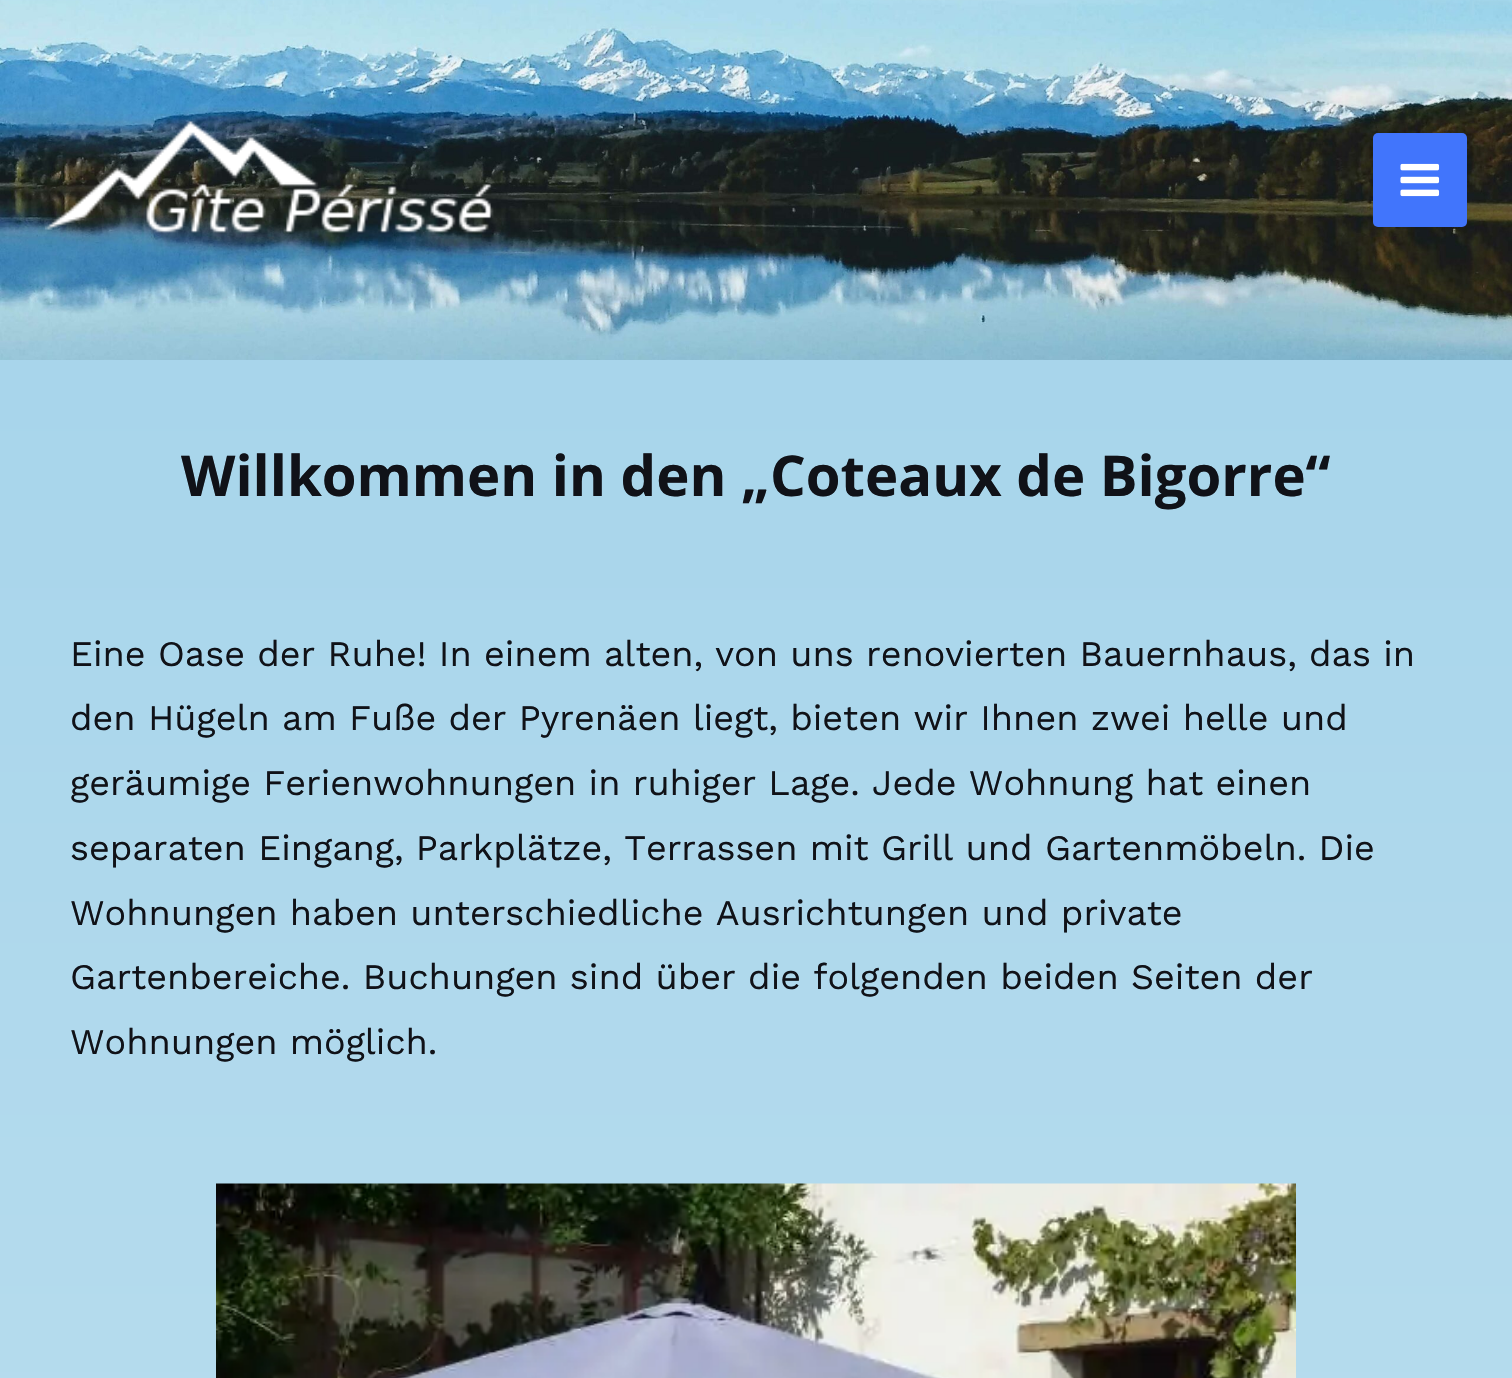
#include "include/core/SkBlurTypes.h"
#include "include/core/SkCanvas.h"
#include "include/core/SkData.h"
#include "include/core/SkFont.h"
#include "include/core/SkFontMgr.h"
#include "include/core/SkImage.h"
#include "include/core/SkMaskFilter.h"
#include "include/core/SkPaint.h"
#include "include/core/SkPathBuilder.h"
#include "include/core/SkTextBlob.h"
#include "include/effects/SkDashPathEffect.h"
#include "include/effects/SkGradientShader.h"
#include "include/utils/SkParsePath.h"

extern sk_sp<SkFontMgr> fontMgr;

void draw(SkCanvas* canvas) {
    SkPaint p;
    p.setAntiAlias(true);
    auto font = [&](const char* family, int weight, float size, bool italic = false) {
        SkFontStyle style(weight, SkFontStyle::kNormal_Width,
            italic ? SkFontStyle::kItalic_Slant : SkFontStyle::kUpright_Slant);
        SkFont result(fontMgr->matchFamilyStyle(family, style), size);
        result.setSubpixel(true);
        return result;
    };
    auto drawPhoto = [&](const char* path, float l, float t, float r, float b) {
        auto image = SkImages::DeferredFromEncodedData(SkData::MakeFromFileName(path));
        canvas->drawImageRect(image, SkRect::MakeLTRB(l, t, r, b), SkSamplingOptions());
    };
    canvas->clear(0xFFFFFFFF);
    {
        const SkColor colors[] = {0xFFA3D3EA, 0xFFE9F3F8};
        const float stops[] = {0, 0.99f};
        const SkPoint ends[] = {{756, 0}, {756, 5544}};
        p.setShader(SkGradientShader::MakeLinear(ends, colors, stops, 2, SkTileMode::kClamp));
        p.setAlpha(255);
    }
    canvas->drawRect(SkRect::MakeLTRB(0, 360, 1512, 1378), p);
    drawPhoto("media/1.png", 0, 0, 1512, 360);
    drawPhoto("media/2.png", 45, 121, 494, 233);
    p.setShader(nullptr);
    p.setColor(0xFF4175FC);
    canvas->drawRoundRect(SkRect::MakeLTRB(1373, 133, 1467, 227), 5, 5, p);
    drawPhoto("media/3.png", 1400, 163, 1440, 197);
    auto font1 = font("Open Sans", 700, 56.25f);
    p.setColor(0xFF101218);
    canvas->drawString("Willkommen in den „Coteaux de Bigorre“", 181, 496, font1, p);
    auto font2 = font("Work Sans", 400, 36);
    {
        const struct { const char* s; float x, y; } items[] = {
            {"Eine Oase der Ruhe! In einem alten, von uns renovierten Bauernhaus, das in", 70, 666},
            {"den Hügeln am Fuße der Pyrenäen liegt, bieten wir Ihnen zwei helle und", 70, 730},
            {"geräumige Ferienwohnungen in ruhiger Lage. Jede Wohnung hat einen", 70, 795},
            {"separaten Eingang, Parkplätze, Terrassen mit Grill und Gartenmöbeln. Die", 70, 860},
            {"Wohnungen haben unterschiedliche Ausrichtungen und private", 70, 925},
            {"Gartenbereiche. Buchungen sind über die folgenden beiden Seiten der", 70, 989},
            {"Wohnungen möglich.", 70, 1054},
        };
        for (auto [s, x, y] : items) {
            canvas->drawString(s, x, y, font2, p);
        }
    }
    drawPhoto("media/4.png", 216, 1183, 1296, 1378);
}
